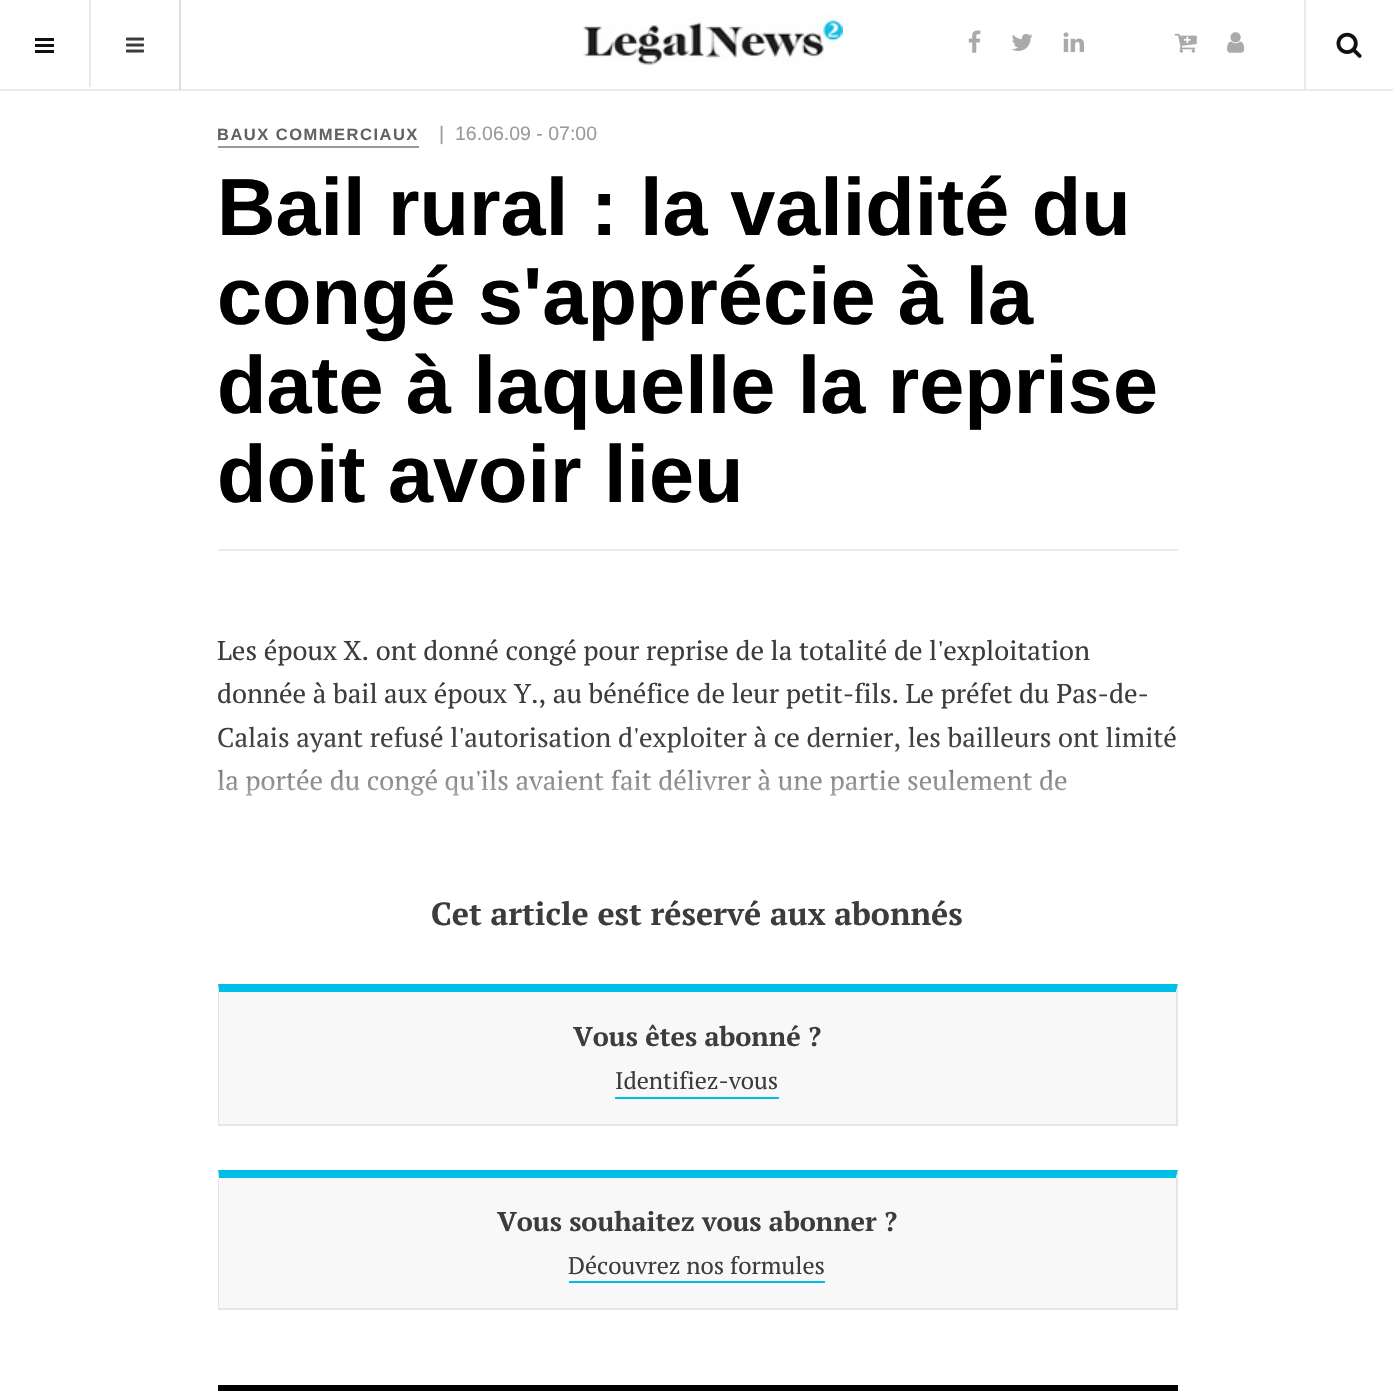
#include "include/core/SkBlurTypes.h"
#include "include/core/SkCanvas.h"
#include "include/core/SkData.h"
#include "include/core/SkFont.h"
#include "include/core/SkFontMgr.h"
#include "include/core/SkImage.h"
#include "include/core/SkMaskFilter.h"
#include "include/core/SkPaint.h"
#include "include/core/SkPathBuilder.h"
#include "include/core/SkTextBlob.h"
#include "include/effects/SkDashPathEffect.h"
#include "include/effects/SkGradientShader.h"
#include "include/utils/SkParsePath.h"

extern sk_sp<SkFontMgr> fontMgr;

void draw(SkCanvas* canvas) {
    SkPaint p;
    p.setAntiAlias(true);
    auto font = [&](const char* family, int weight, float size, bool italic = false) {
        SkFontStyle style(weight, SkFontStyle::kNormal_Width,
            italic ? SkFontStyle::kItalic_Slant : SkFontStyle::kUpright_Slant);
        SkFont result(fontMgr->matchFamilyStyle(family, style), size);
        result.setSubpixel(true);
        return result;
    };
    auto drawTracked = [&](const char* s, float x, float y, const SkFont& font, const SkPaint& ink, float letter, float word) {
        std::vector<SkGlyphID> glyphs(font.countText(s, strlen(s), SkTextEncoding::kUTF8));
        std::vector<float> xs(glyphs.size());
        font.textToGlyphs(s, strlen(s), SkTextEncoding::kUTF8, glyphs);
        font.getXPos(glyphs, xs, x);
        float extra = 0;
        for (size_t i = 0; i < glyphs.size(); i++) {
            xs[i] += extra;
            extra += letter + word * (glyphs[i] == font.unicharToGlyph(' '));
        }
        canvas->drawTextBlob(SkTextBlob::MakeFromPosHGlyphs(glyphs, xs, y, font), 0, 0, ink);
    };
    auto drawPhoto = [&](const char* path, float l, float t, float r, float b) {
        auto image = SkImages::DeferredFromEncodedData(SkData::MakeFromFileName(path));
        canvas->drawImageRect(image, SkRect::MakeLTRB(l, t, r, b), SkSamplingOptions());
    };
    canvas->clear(0xFFFFFFFF);
    {
        const struct { float l, t, r, b; SkColor color; } items[] = {
            {0, 89, 1393, 91, 0xFFEAEAEA},
            {89, 0, 91, 87, 0xFFEAEAEA},
            {35, 44, 54, 47, 0xFF111111},
            {35, 38, 54, 41, 0xFF111111},
            {35, 50, 54, 53, 0xFF111111},
        };
        for (auto [l, t, r, b, color] : items) {
            p.setColor(color);
            canvas->drawRect(SkRect::MakeLTRB(l, t, r, b), p);
        }
    }
    drawPhoto("media/1.png", 583, 14, 843, 66);
    drawPhoto("media/2.png", 968, 30, 981, 53);
    drawPhoto("media/3.png", 1012, 33, 1033, 51);
    drawPhoto("media/4.png", 1063, 32, 1085, 53);
    drawPhoto("media/5.png", 1174, 33, 1197, 53);
    drawPhoto("media/6.png", 1227, 32, 1245, 53);
    p.setColor(0xFFEAEAEA);
    canvas->drawRect(SkRect::MakeLTRB(1304, 0, 1306, 89), p);
    drawPhoto("media/7.png", 1336, 32, 1362, 58);
    p.setColor(0xFFDDDDDD);
    canvas->drawRect(SkRect::MakeLTRB(179, 0, 181, 90), p);
    drawPhoto("media/8.png", 126, 37, 144, 53);
    auto font1 = font("Liberation Sans", 700, 16.5f);
    p.setColor(0xFF626262);
    drawTracked("BAUX COMMERCIAUX", 217, 140, font1, p, 1.5f, 0);
    p.setColor(0xFF999999);
    canvas->drawRect(SkRect::MakeLTRB(218, 146, 419, 148), p);
    auto font2 = font("Liberation Sans", 400, 19.5f);
    canvas->drawString("|", 439, 140, font2, p);
    canvas->drawString("16.06.09 - 07:00", 455, 140, font2, p);
    p.setColor(0xFFEAEAEA);
    canvas->drawRect(SkRect::MakeLTRB(218, 549, 1178, 551), p);
    auto font3 = font("Liberation Sans", 700, 81);
    p.setColor(0xFF000000);
    {
        const struct { const char* s; float x, y; } items[] = {
            {"Bail rural : la validité du", 217, 235},
            {"congé s'apprécie à la", 217, 324},
            {"date à laquelle la reprise", 217, 413},
            {"doit avoir lieu", 217, 502},
        };
        for (auto [s, x, y] : items) {
            canvas->drawString(s, x, y, font3, p);
        }
    }
    auto font4 = font("PT Serif", 400, 27);
    p.setColor(0xFF3C3C3C);
    {
        const struct { const char* s; float x, y; } items[] = {
            {"Les époux X. ont donné congé pour reprise de la totalité de l'exploitation", 217, 660},
            {"donnée à bail aux époux Y., au bénéfice de leur petit-fils. Le préfet du Pas-de-", 217, 703},
            {"Calais ayant refusé l'autorisation d'exploiter à ce dernier, les bailleurs ont limité", 217, 747},
            {"la portée du congé qu'ils avaient fait délivrer à une partie seulement de", 217, 790},
        };
        for (auto [s, x, y] : items) {
            canvas->drawString(s, x, y, font4, p);
        }
    }
    {
        const SkColor colors[] = {0x00FFFFFF, 0xFFFFFFFF};
        const float stops[] = {0, 0.7f};
        const SkPoint ends[] = {{698, 738}, {698, 888}};
        p.setShader(SkGradientShader::MakeLinear(ends, colors, stops, 2, SkTileMode::kClamp));
        p.setAlpha(255);
    }
    canvas->drawRect(SkRect::MakeLTRB(218, 740, 1175, 796), p);
    auto font5 = font("PT Serif", 700, 32);
    p.setShader(nullptr);
    p.setColor(0xFF3C3C3C);
    canvas->drawString("Cet article est réservé aux abonnés", 431, 925, font5, p);
    p.setColor(0xFFF8F8F8);
    canvas->drawRect(SkRect::MakeLTRB(219, 992, 1176, 1124), p);
    p.setColor(0xFF00BFE6);
    canvas->drawPath(SkPathBuilder().moveTo(218, 984).lineTo(1178, 984).lineTo(1176, 992).lineTo(219, 992).close().detach(), p);
    p.setColor(0xFFE5E5E5);
    canvas->drawPath(SkPathBuilder().moveTo(1178, 984).lineTo(1178, 1125).lineTo(1176, 1124).lineTo(1176, 992).close().detach(), p);
    canvas->drawRect(SkRect::MakeLTRB(218, 1124, 1178, 1126), p);
    canvas->drawPath(SkPathBuilder().moveTo(218, 1125).lineTo(218, 984).lineTo(219, 992).lineTo(219, 1124).close().detach(), p);
    auto font6 = font("PT Serif", 700, 27);
    p.setColor(0xFF3C3C3C);
    canvas->drawString("Vous êtes abonné ?", 573, 1046, font6, p);
    auto font7 = font("PT Serif", 400, 24);
    canvas->drawString("Identifiez-vous", 615, 1089, font7, p);
    p.setColor(0xFF00BFE6);
    canvas->drawRect(SkRect::MakeLTRB(615, 1097, 779, 1099), p);
    p.setColor(0xFFF8F8F8);
    canvas->drawRect(SkRect::MakeLTRB(219, 1178, 1176, 1308), p);
    p.setColor(0xFF00BFE6);
    canvas->drawPath(SkPathBuilder().moveTo(218, 1170).lineTo(1178, 1170).lineTo(1176, 1178).lineTo(219, 1178).close().detach(), p);
    p.setColor(0xFFE5E5E5);
    canvas->drawPath(SkPathBuilder().moveTo(1178, 1170).lineTo(1178, 1310).lineTo(1176, 1308).lineTo(1176, 1178).close().detach(), p);
    canvas->drawRect(SkRect::MakeLTRB(218, 1308, 1178, 1310), p);
    canvas->drawPath(SkPathBuilder().moveTo(218, 1310).lineTo(218, 1170).lineTo(219, 1178).lineTo(219, 1308).close().detach(), p);
    p.setColor(0xFF3C3C3C);
    canvas->drawString("Vous souhaitez vous abonner ?", 497, 1231, font6, p);
    canvas->drawString("Découvrez nos formules", 568, 1274, font7, p);
    p.setColor(0xFF00BFE6);
    canvas->drawRect(SkRect::MakeLTRB(569, 1281, 825, 1283), p);
    p.setColor(0xFF000000);
    canvas->drawRect(SkRect::MakeLTRB(218, 1385, 1178, 1391), p);
}
